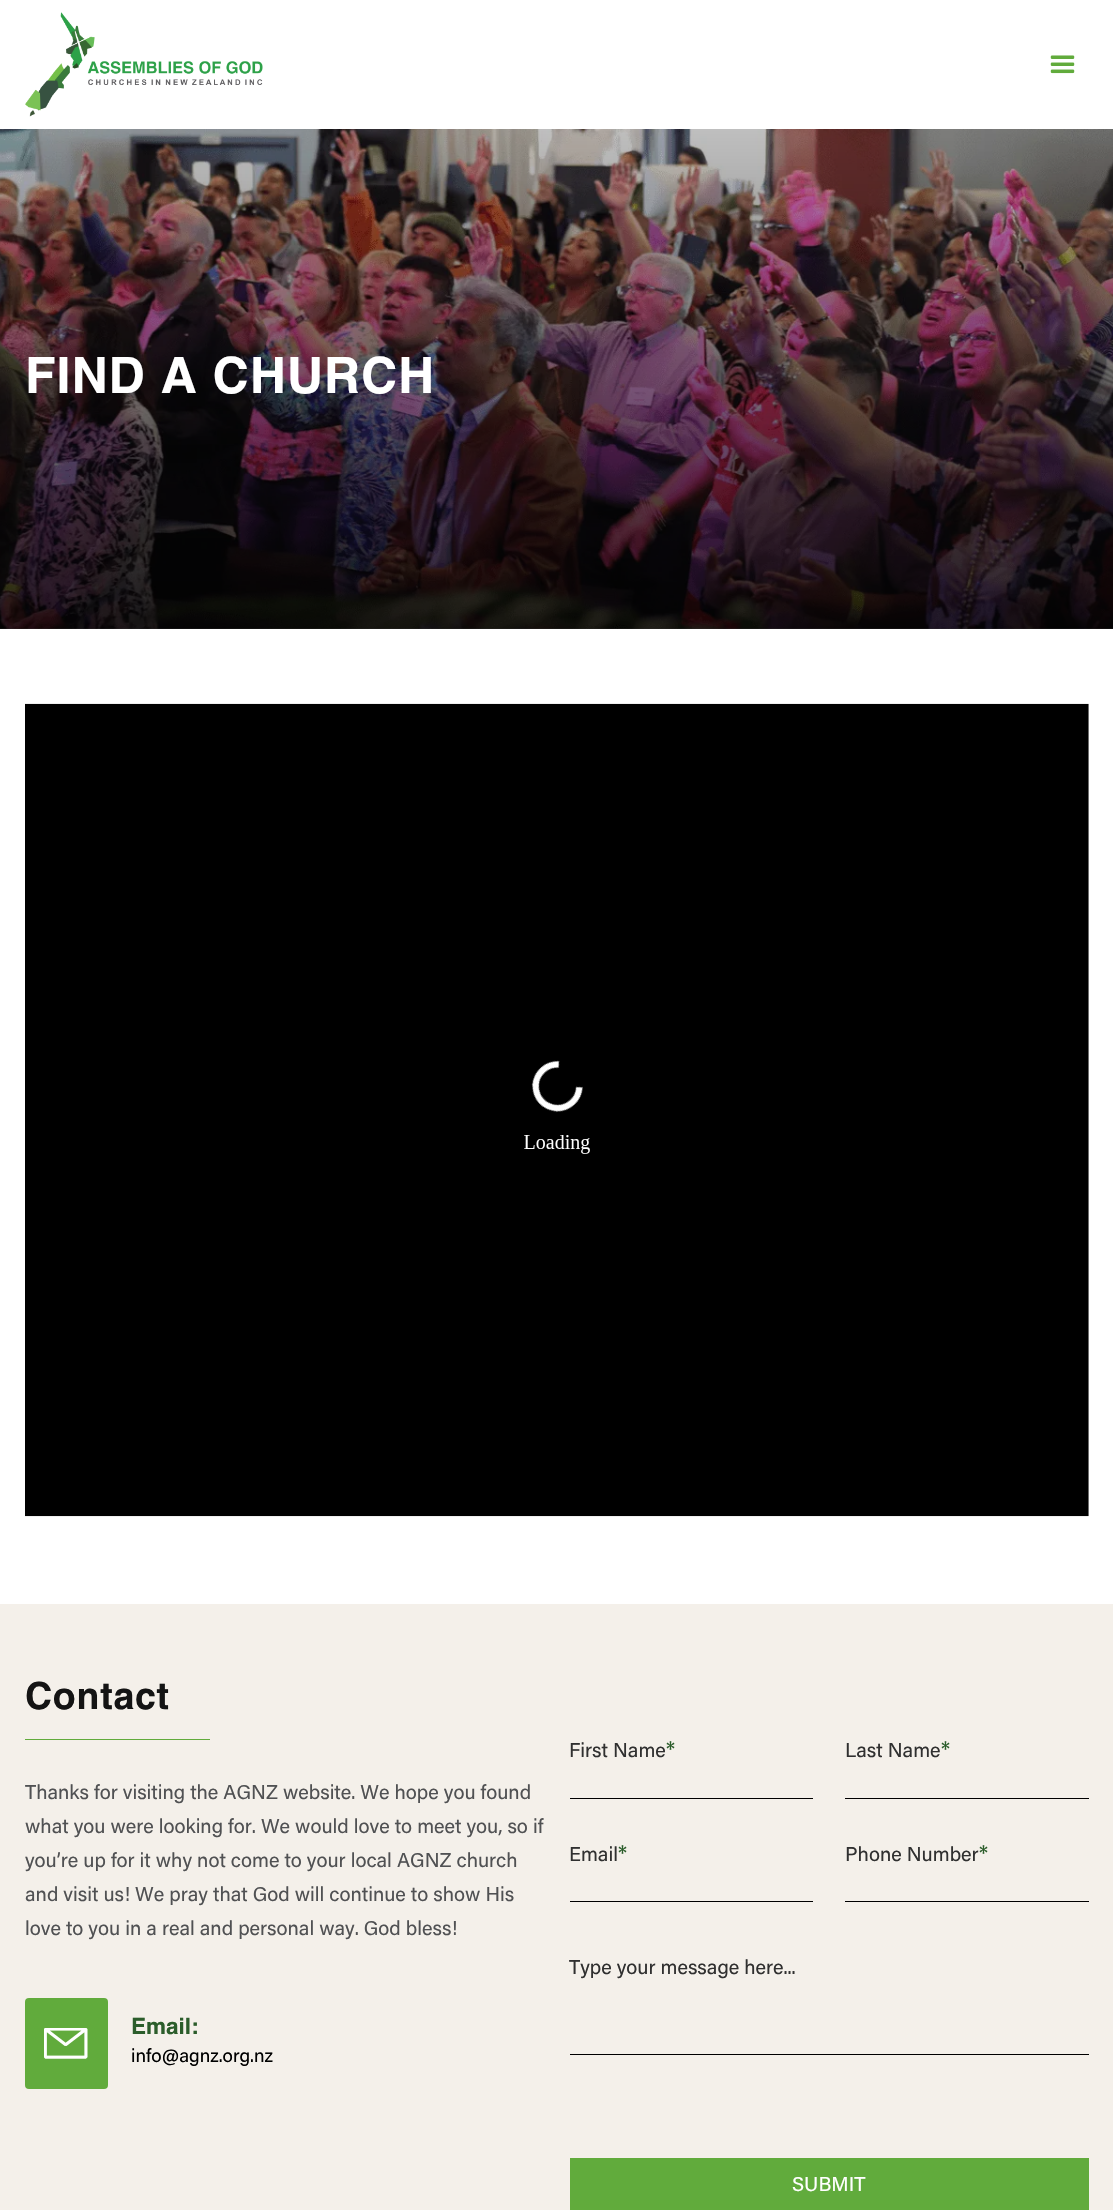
#include "include/core/SkBlurTypes.h"
#include "include/core/SkCanvas.h"
#include "include/core/SkData.h"
#include "include/core/SkFont.h"
#include "include/core/SkFontMgr.h"
#include "include/core/SkImage.h"
#include "include/core/SkMaskFilter.h"
#include "include/core/SkPaint.h"
#include "include/core/SkPathBuilder.h"
#include "include/core/SkTextBlob.h"
#include "include/effects/SkDashPathEffect.h"
#include "include/effects/SkGradientShader.h"
#include "include/utils/SkParsePath.h"

extern sk_sp<SkFontMgr> fontMgr;

void draw(SkCanvas* canvas) {
    SkPaint p;
    p.setAntiAlias(true);
    auto font = [&](const char* family, int weight, float size, bool italic = false) {
        SkFontStyle style(weight, SkFontStyle::kNormal_Width,
            italic ? SkFontStyle::kItalic_Slant : SkFontStyle::kUpright_Slant);
        SkFont result(fontMgr->matchFamilyStyle(family, style), size);
        result.setSubpixel(true);
        return result;
    };
    auto drawTracked = [&](const char* s, float x, float y, const SkFont& font, const SkPaint& ink, float letter, float word) {
        std::vector<SkGlyphID> glyphs(font.countText(s, strlen(s), SkTextEncoding::kUTF8));
        std::vector<float> xs(glyphs.size());
        font.textToGlyphs(s, strlen(s), SkTextEncoding::kUTF8, glyphs);
        font.getXPos(glyphs, xs, x);
        float extra = 0;
        for (size_t i = 0; i < glyphs.size(); i++) {
            xs[i] += extra;
            extra += letter + word * (glyphs[i] == font.unicharToGlyph(' '));
        }
        canvas->drawTextBlob(SkTextBlob::MakeFromPosHGlyphs(glyphs, xs, y, font), 0, 0, ink);
    };
    auto drawPhoto = [&](const char* path, float l, float t, float r, float b) {
        auto image = SkImages::DeferredFromEncodedData(SkData::MakeFromFileName(path));
        canvas->drawImageRect(image, SkRect::MakeLTRB(l, t, r, b), SkSamplingOptions());
    };
    canvas->clear(0xFFFFFFFF);
    drawPhoto("media/1.png", 25, 12, 263, 117);
    drawPhoto("media/2.png", 1050, 55, 1075, 74);
    drawPhoto("media/3.png", 0, 129, 1113, 629);
    {
        const SkColor colors[] = {0x40000000, 0xCC000000};
        const float stops[] = {0, 1};
        const SkPoint ends[] = {{557, 129}, {557, 629}};
        p.setShader(SkGradientShader::MakeLinear(ends, colors, stops, 2, SkTileMode::kClamp));
        p.setAlpha(255);
    }
    canvas->drawRect(SkRect::MakeLTRB(0, 129, 1113, 629), p);
    auto font1 = font("Helvetica", 700, 50);
    p.setShader(nullptr);
    p.setColor(0xFFFFFFFF);
    drawTracked("FIND A CHURCH", 25, 393, font1, p, 1, 0);
    drawPhoto("media/4.png", 25, 703, 1089, 1517);
    p.setColor(0xFFF4F0EA);
    canvas->drawRect(SkRect::MakeLTRB(0, 1604, 1113, 2210), p);
    auto font2 = font("Helvetica", 700, 37.5f);
    p.setColor(0xFF141414);
    drawTracked("Contact", 25, 1709, font2, p, 0.75f, 0);
    p.setColor(0xFF61AB3C);
    canvas->drawRect(SkRect::MakeLTRB(25, 1739, 210, 1740), p);
    auto font3 = font("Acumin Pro", 400, 20);
    p.setColor(0xFF505153);
    {
        const struct { const char* s; float x, y; } items[] = {
            {"Thanks for visiting the AGNZ website. We hope you found", 25, 1799},
            {"what you were looking for. We would love to meet you, so if", 25, 1833},
            {"you’re up for it why not come to your local AGNZ church", 25, 1867},
            {"and visit us! We pray that God will continue to show His", 25, 1901},
            {"love to you in a real and personal way. God bless!", 25, 1935},
        };
        for (auto [s, x, y] : items) {
            canvas->drawString(s, x, y, font3, p);
        }
    }
    p.setColor(0xFF61AB3C);
    canvas->drawRoundRect(SkRect::MakeLTRB(25, 1998, 108, 2089), 4, 4, p);
    drawPhoto("media/5.png", 44, 2028, 88, 2059);
    auto font4 = font("Helvetica", 700, 22.5f);
    p.setColor(0xFF2B5D2B);
    canvas->drawString("Email:", 131, 2034, font4, p);
    auto font5 = font("Acumin Pro", 400, 18.75f);
    p.setColor(0xFF000000);
    canvas->drawString("info@agnz.org.nz", 131, 2062, font5, p);
    p.setColor(0xFF303030);
    canvas->drawString("First Name", 569, 1757, font3, p);
    auto font6 = font("Acumin Pro", 400, 22.5f);
    p.setColor(0xFF2B5D2B);
    canvas->drawString("*", 666, 1757, font6, p);
    p.setColor(0xFF000000);
    canvas->drawRect(SkRect::MakeLTRB(570, 1798, 813, 1799), p);
    p.setColor(0xFF303030);
    canvas->drawString("Last Name", 845, 1757, font3, p);
    p.setColor(0xFF2B5D2B);
    canvas->drawString("*", 941, 1757, font6, p);
    p.setColor(0xFF000000);
    canvas->drawRect(SkRect::MakeLTRB(845, 1798, 1089, 1799), p);
    p.setColor(0xFF303030);
    canvas->drawString("Email", 569, 1861, font3, p);
    p.setColor(0xFF2B5D2B);
    canvas->drawString("*", 618, 1861, font6, p);
    p.setColor(0xFF000000);
    canvas->drawRect(SkRect::MakeLTRB(570, 1901, 813, 1902), p);
    p.setColor(0xFF303030);
    canvas->drawString("Phone Number", 845, 1861, font3, p);
    p.setColor(0xFF2B5D2B);
    canvas->drawString("*", 979, 1861, font6, p);
    p.setColor(0xFF000000);
    canvas->drawRect(SkRect::MakeLTRB(845, 1901, 1089, 1902), p);
    canvas->drawRect(SkRect::MakeLTRB(570, 2054, 1089, 2055), p);
    p.setColor(0xFF303030);
    canvas->drawString("Type your message here...", 569, 1974, font3, p);
    p.setColor(0xFF61AB3C);
    canvas->drawRect(SkRect::MakeLTRB(570, 2158, 1089, 2210), p);
    p.setColor(0xFFFFFFFF);
    canvas->drawString("SUBMIT", 792, 2191, font3, p);
}
